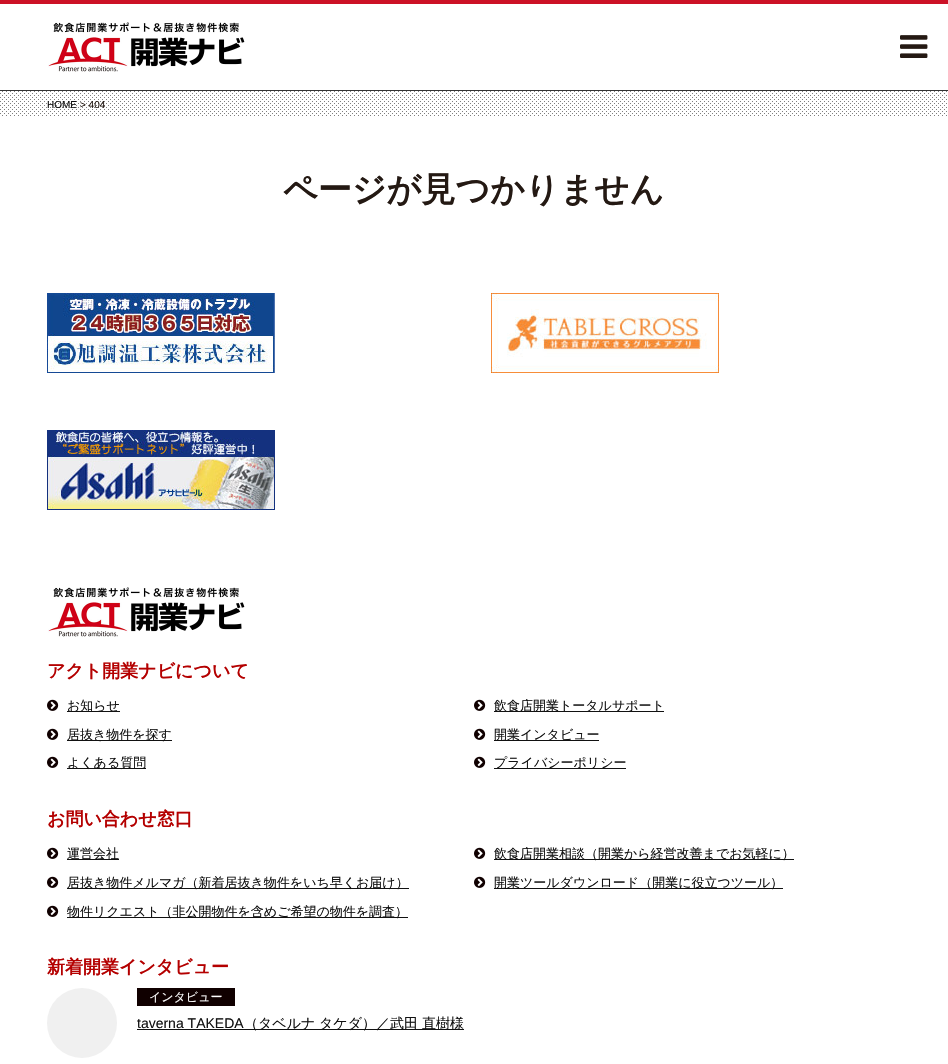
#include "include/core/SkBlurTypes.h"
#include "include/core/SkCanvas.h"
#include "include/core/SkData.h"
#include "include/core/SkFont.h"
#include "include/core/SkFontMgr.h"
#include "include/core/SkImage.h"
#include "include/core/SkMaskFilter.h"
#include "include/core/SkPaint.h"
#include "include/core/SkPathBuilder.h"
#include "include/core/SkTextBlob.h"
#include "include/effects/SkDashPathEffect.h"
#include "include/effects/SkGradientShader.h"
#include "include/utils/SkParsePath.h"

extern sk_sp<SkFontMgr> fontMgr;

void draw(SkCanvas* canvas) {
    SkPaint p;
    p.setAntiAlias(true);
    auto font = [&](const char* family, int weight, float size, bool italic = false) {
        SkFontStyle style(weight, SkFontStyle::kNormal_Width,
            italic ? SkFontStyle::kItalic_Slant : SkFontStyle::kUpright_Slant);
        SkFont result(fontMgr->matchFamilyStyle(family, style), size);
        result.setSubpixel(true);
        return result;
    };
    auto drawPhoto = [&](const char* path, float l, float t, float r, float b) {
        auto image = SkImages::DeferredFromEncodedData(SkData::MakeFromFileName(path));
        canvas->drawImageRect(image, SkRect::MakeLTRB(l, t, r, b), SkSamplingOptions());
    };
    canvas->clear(0xFFFFFFFF);
    p.setColor(0xFFCC1126);
    canvas->drawRect(SkRect::MakeLTRB(0, 0, 948, 4), p);
    p.setColor(0xFF333333);
    canvas->drawRect(SkRect::MakeLTRB(0, 90, 948, 91), p);
    drawPhoto("media/1.png", 48, 22, 245, 72);
    drawPhoto("media/2.png", 900, 35, 928, 58);
    drawPhoto("media/3.png", 0, 91, 948, 117);
    auto font1 = font("Liberation Sans", 400, 10);
    p.setColor(0xFF111111);
    canvas->drawString("HOME", 47, 108, font1, p);
    p.setColor(0xFF241913);
    canvas->drawString("> 404", 80, 108, font1, p);
    auto font2 = font("WenQuanYi Zen Hei", 700, 34);
    canvas->drawString("ページが見つかりません", 283, 201, font2, p);
    drawPhoto("media/4.png", 47, 293, 275, 373);
    drawPhoto("media/5.png", 491, 293, 719, 373);
    drawPhoto("media/6.png", 47, 430, 275, 510);
    drawPhoto("media/1.png", 48, 587, 245, 637);
    auto font3 = font("WenQuanYi Zen Hei", 700, 18);
    p.setColor(0xFFB40000);
    canvas->drawString("アクト開業ナビについて", 47, 677, font3, p);
    drawPhoto("media/7.png", 47, 699, 59, 711);
    p.setColor(0xFF111111);
    canvas->drawRect(SkRect::MakeLTRB(67, 711, 120, 712), p);
    auto font4 = font("WenQuanYi Zen Hei", 500, 13);
    canvas->drawString("お知らせ", 67, 710, font4, p);
    drawPhoto("media/7.png", 474, 699, 486, 711);
    canvas->drawRect(SkRect::MakeLTRB(494, 711, 664, 712), p);
    canvas->drawString("飲食店開業トータルサポート", 494, 710, font4, p);
    drawPhoto("media/7.png", 47, 728, 59, 740);
    canvas->drawRect(SkRect::MakeLTRB(67, 740, 172, 741), p);
    canvas->drawString("居抜き物件を探す", 67, 739, font4, p);
    drawPhoto("media/7.png", 474, 728, 486, 740);
    canvas->drawRect(SkRect::MakeLTRB(494, 740, 599, 741), p);
    canvas->drawString("開業インタビュー", 494, 739, font4, p);
    drawPhoto("media/7.png", 47, 756, 59, 768);
    canvas->drawRect(SkRect::MakeLTRB(67, 768, 146, 769), p);
    canvas->drawString("よくある質問", 67, 767, font4, p);
    drawPhoto("media/7.png", 474, 756, 486, 768);
    canvas->drawRect(SkRect::MakeLTRB(494, 768, 626, 769), p);
    canvas->drawString("プライバシーポリシー", 494, 767, font4, p);
    p.setColor(0xFFB40000);
    canvas->drawString("お問い合わせ窓口", 47, 825, font3, p);
    drawPhoto("media/7.png", 47, 847, 59, 859);
    p.setColor(0xFF111111);
    canvas->drawRect(SkRect::MakeLTRB(67, 859, 119, 860), p);
    canvas->drawString("運営会社", 67, 858, font4, p);
    drawPhoto("media/7.png", 474, 847, 486, 859);
    canvas->drawRect(SkRect::MakeLTRB(494, 859, 794, 860), p);
    canvas->drawString("飲食店開業相談（開業から経営改善までお気軽に）", 494, 858, font4, p);
    drawPhoto("media/7.png", 47, 876, 59, 888);
    canvas->drawRect(SkRect::MakeLTRB(67, 888, 409, 889), p);
    canvas->drawString("居抜き物件メルマガ（新着居抜き物件をいち早くお届け）", 67, 887, font4, p);
    drawPhoto("media/7.png", 474, 876, 486, 888);
    canvas->drawRect(SkRect::MakeLTRB(494, 888, 783, 889), p);
    canvas->drawString("開業ツールダウンロード（開業に役立つツール）", 494, 887, font4, p);
    drawPhoto("media/7.png", 47, 905, 59, 917);
    canvas->drawRect(SkRect::MakeLTRB(67, 917, 408, 918), p);
    canvas->drawString("物件リクエスト（非公開物件を含めご希望の物件を調査）", 67, 916, font4, p);
    p.setColor(0xFFB40000);
    canvas->drawString("新着開業インタビュー", 47, 973, font3, p);
    p.setColor(0xFFF0F0F0);
    canvas->drawCircle(82, 1023, 35, p);
    p.setColor(0xFF100000);
    canvas->drawRect(SkRect::MakeLTRB(137, 988, 235, 1006), p);
    auto font5 = font("WenQuanYi Zen Hei", 500, 12);
    p.setColor(0xFFFFFFFF);
    canvas->drawString("インタビュー", 149, 1001, font5, p);
    auto font6 = font("Liberation Sans", 400, 14);
    p.setColor(0xFF111111);
    canvas->drawString("taverna TAKEDA", 137, 1028, font6, p);
    canvas->drawRect(SkRect::MakeLTRB(137, 1029, 464, 1030), p);
    auto font7 = font("WenQuanYi Zen Hei", 500, 14);
    {
        const struct { const char* s; float x, y; } items[] = {
            {"（タベルナ", 244, 1028},
            {"タケダ）／武田", 319, 1028},
            {"直樹様", 422, 1028},
        };
        for (auto [s, x, y] : items) {
            canvas->drawString(s, x, y, font7, p);
        }
    }
}
